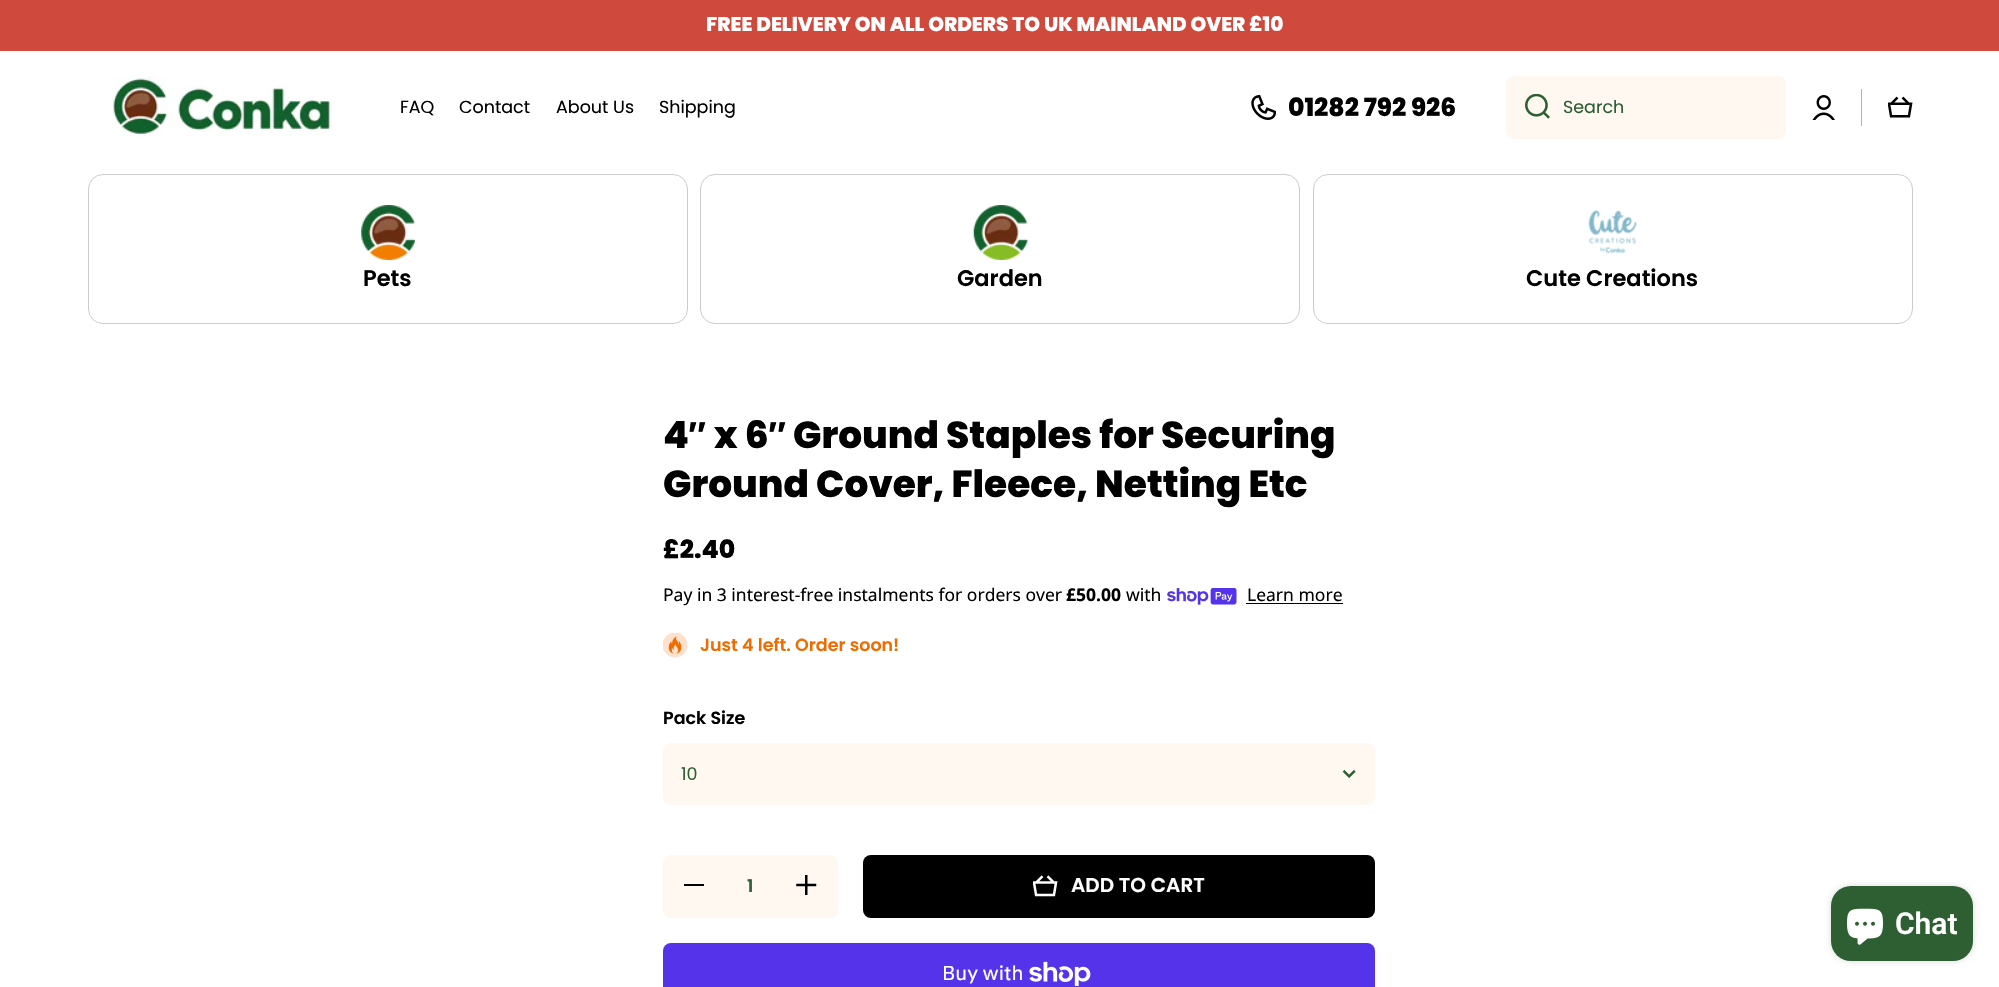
#include "include/core/SkBlurTypes.h"
#include "include/core/SkCanvas.h"
#include "include/core/SkData.h"
#include "include/core/SkFont.h"
#include "include/core/SkFontMgr.h"
#include "include/core/SkImage.h"
#include "include/core/SkMaskFilter.h"
#include "include/core/SkPaint.h"
#include "include/core/SkPathBuilder.h"
#include "include/core/SkTextBlob.h"
#include "include/effects/SkDashPathEffect.h"
#include "include/effects/SkGradientShader.h"
#include "include/utils/SkParsePath.h"

extern sk_sp<SkFontMgr> fontMgr;

void draw(SkCanvas* canvas) {
    SkPaint p;
    p.setAntiAlias(true);
    auto font = [&](const char* family, int weight, float size, bool italic = false) {
        SkFontStyle style(weight, SkFontStyle::kNormal_Width,
            italic ? SkFontStyle::kItalic_Slant : SkFontStyle::kUpright_Slant);
        SkFont result(fontMgr->matchFamilyStyle(family, style), size);
        result.setSubpixel(true);
        return result;
    };
    auto drawPhoto = [&](const char* path, float l, float t, float r, float b) {
        auto image = SkImages::DeferredFromEncodedData(SkData::MakeFromFileName(path));
        canvas->drawImageRect(image, SkRect::MakeLTRB(l, t, r, b), SkSamplingOptions());
    };
    canvas->clear(0xFFFFFFFF);
    p.setColor(0xFFD0493D);
    canvas->drawRect(SkRect::MakeLTRB(0, 0, 1999, 51), p);
    auto font1 = font("Poppins", 800, 20);
    p.setColor(0xFFFFFFFF);
    canvas->drawString("FREE DELIVERY ON ALL ORDERS TO UK MAINLAND OVER £10", 706, 31, font1, p);
    drawPhoto("media/1.png", 112, 76, 337, 137);
    auto font2 = font("Poppins", 400, 17.5f);
    p.setColor(0xFF000000);
    {
        const struct { const char* s; float x, y; } items[] = {
            {"FAQ", 400, 113},
            {"Contact", 459, 113},
            {"About Us", 556, 113},
            {"Shipping", 659, 113},
        };
        for (auto [s, x, y] : items) {
            canvas->drawString(s, x, y, font2, p);
        }
    }
    drawPhoto("media/2.png", 1251, 95, 1276, 120);
    auto font3 = font("Poppins", 800, 25);
    canvas->drawString("01282 792 926", 1288, 116, font3, p);
    p.setColor(0xFFFFF8F1);
    canvas->drawRoundRect(SkRect::MakeLTRB(1506, 76, 1786, 139), 8, 8, p);
    drawPhoto("media/3.png", 1525, 94, 1550, 119);
    p.setColor(0xFF2D5F33);
    canvas->drawString("Search", 1563, 113, font2, p);
    drawPhoto("media/4.png", 1812, 95, 1835, 120);
    p.setColor(0xFFB3B3B3);
    canvas->drawRect(SkRect::MakeLTRB(1861, 89, 1862, 126), p);
    drawPhoto("media/5.png", 1888, 96, 1913, 118);
    p.setStyle(SkPaint::kStroke_Style);
    p.setStrokeWidth(1);
    p.setColor(0xFFCCCCCC);
    canvas->drawRoundRect(SkRect::MakeLTRB(88.5f, 174.5f, 687.5f, 323.5f), 14.5f, 14.5f, p);
    drawPhoto("media/6.png", 361, 205, 415, 260);
    auto font4 = font("Poppins", 600, 22.5f);
    p.setStyle(SkPaint::kFill_Style);
    p.setColor(0xFF000000);
    canvas->drawString("Pets", 363, 286, font4, p);
    p.setStyle(SkPaint::kStroke_Style);
    p.setColor(0xFFCCCCCC);
    canvas->drawRoundRect(SkRect::MakeLTRB(700.5f, 174.5f, 1299.5f, 323.5f), 14.5f, 14.5f, p);
    drawPhoto("media/7.png", 973, 205, 1028, 260);
    p.setStyle(SkPaint::kFill_Style);
    p.setColor(0xFF000000);
    canvas->drawString("Garden", 957, 286, font4, p);
    p.setStyle(SkPaint::kStroke_Style);
    p.setColor(0xFFCCCCCC);
    canvas->drawRoundRect(SkRect::MakeLTRB(1313.5f, 174.5f, 1912.5f, 323.5f), 14.5f, 14.5f, p);
    drawPhoto("media/8.png", 1588, 210, 1637, 254);
    p.setStyle(SkPaint::kFill_Style);
    p.setColor(0xFF000000);
    canvas->drawString("Cute Creations", 1526, 286, font4, p);
    auto font5 = font("Poppins", 800, 37.5f);
    canvas->drawString("4", 663, 448, font5, p);
    auto font6 = font("Liberation Sans", 700, 37.5f);
    canvas->drawString("″", 688, 448, font6, p);
    canvas->drawString("x 6", 714, 448, font5, p);
    canvas->drawString("″", 768, 448, font6, p);
    canvas->drawString("Ground Staples for Securing", 793, 448, font5, p);
    canvas->drawString("Ground Cover, Fleece, Netting Etc", 663, 497, font5, p);
    canvas->drawString("£2.40", 663, 558, font3, p);
    auto font7 = font("Noto Sans", 400, 17.5f);
    canvas->drawString("Pay in 3 interest-free instalments for orders over", 663, 601, font7, p);
    auto font8 = font("Noto Sans", 700, 17.5f);
    canvas->drawString("£50.00", 1066, 601, font8, p);
    canvas->drawString("with", 1126, 601, font7, p);
    drawPhoto("media/9.png", 1167, 588, 1237, 605);
    canvas->drawString("Learn more", 1247, 601, font7, p);
    canvas->drawRect(SkRect::MakeLTRB(1246, 603, 1343, 604), p);
    drawPhoto("media/10.png", 663, 633, 688, 658);
    auto font9 = font("Poppins", 600, 17.5f);
    p.setColor(0xFFEF6C00);
    canvas->drawString("Just 4 left. Order soon!", 700, 651, font9, p);
    p.setColor(0xFF000000);
    canvas->drawString("Pack Size", 663, 724, font9, p);
    p.setColor(0xFFFFF8F1);
    canvas->drawRoundRect(SkRect::MakeLTRB(663, 743, 1375, 805), 8, 8, p);
    p.setColor(0xFF2D5F33);
    canvas->drawString("10", 681, 780, font2, p);
    drawPhoto("media/11.png", 1342, 770, 1356, 778);
    p.setColor(0xFFFFF8F1);
    canvas->drawRoundRect(SkRect::MakeLTRB(663, 855, 838, 918), 8, 8, p);
    p.setColor(0xFF000000);
    canvas->drawRect(SkRect::MakeLTRB(684, 884, 704, 886), p);
    p.setColor(0xFF2D5F33);
    canvas->drawString("1", 747, 892, font9, p);
    drawPhoto("media/12.png", 796, 875, 817, 895);
    p.setColor(0xFF000000);
    canvas->drawRoundRect(SkRect::MakeLTRB(863, 855, 1375, 918), 8, 8, p);
    drawPhoto("media/13.png", 1033, 875, 1058, 897);
    auto font10 = font("Poppins", 600, 20);
    p.setColor(0xFFFFFFFF);
    canvas->drawString("ADD TO CART", 1071, 892, font10, p);
    p.setColor(0xFF5433EB);
    canvas->drawRoundRect(SkRect::MakeLTRB(663, 943, 1375, 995), 8, 8, p);
    auto font11 = font("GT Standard", 400, 20);
    p.setColor(0xFFFFFFFF);
    canvas->drawString("Buy with", 942, 980, font11, p);
    drawPhoto("media/14.png", 1029, 961, 1091, 986);
    p.setColor(0x26000000);
    p.setMaskFilter(SkMaskFilter::MakeBlur(kNormal_SkBlurStyle, 3));
    canvas->drawRoundRect(SkRect::MakeLTRB(1831, 886, 1973, 961), 20, 20, p);
    p.setMaskFilter(nullptr);
    p.setColor(0xFF2D5F33);
    canvas->drawRoundRect(SkRect::MakeLTRB(1831, 886, 1973, 961), 20, 20, p);
    drawPhoto("media/15.png", 1847, 908, 1883, 945);
    auto font12 = font("Roboto", 600, 30);
    p.setColor(0xFFFFFFFF);
    canvas->drawString("Chat", 1895, 934, font12, p);
}
